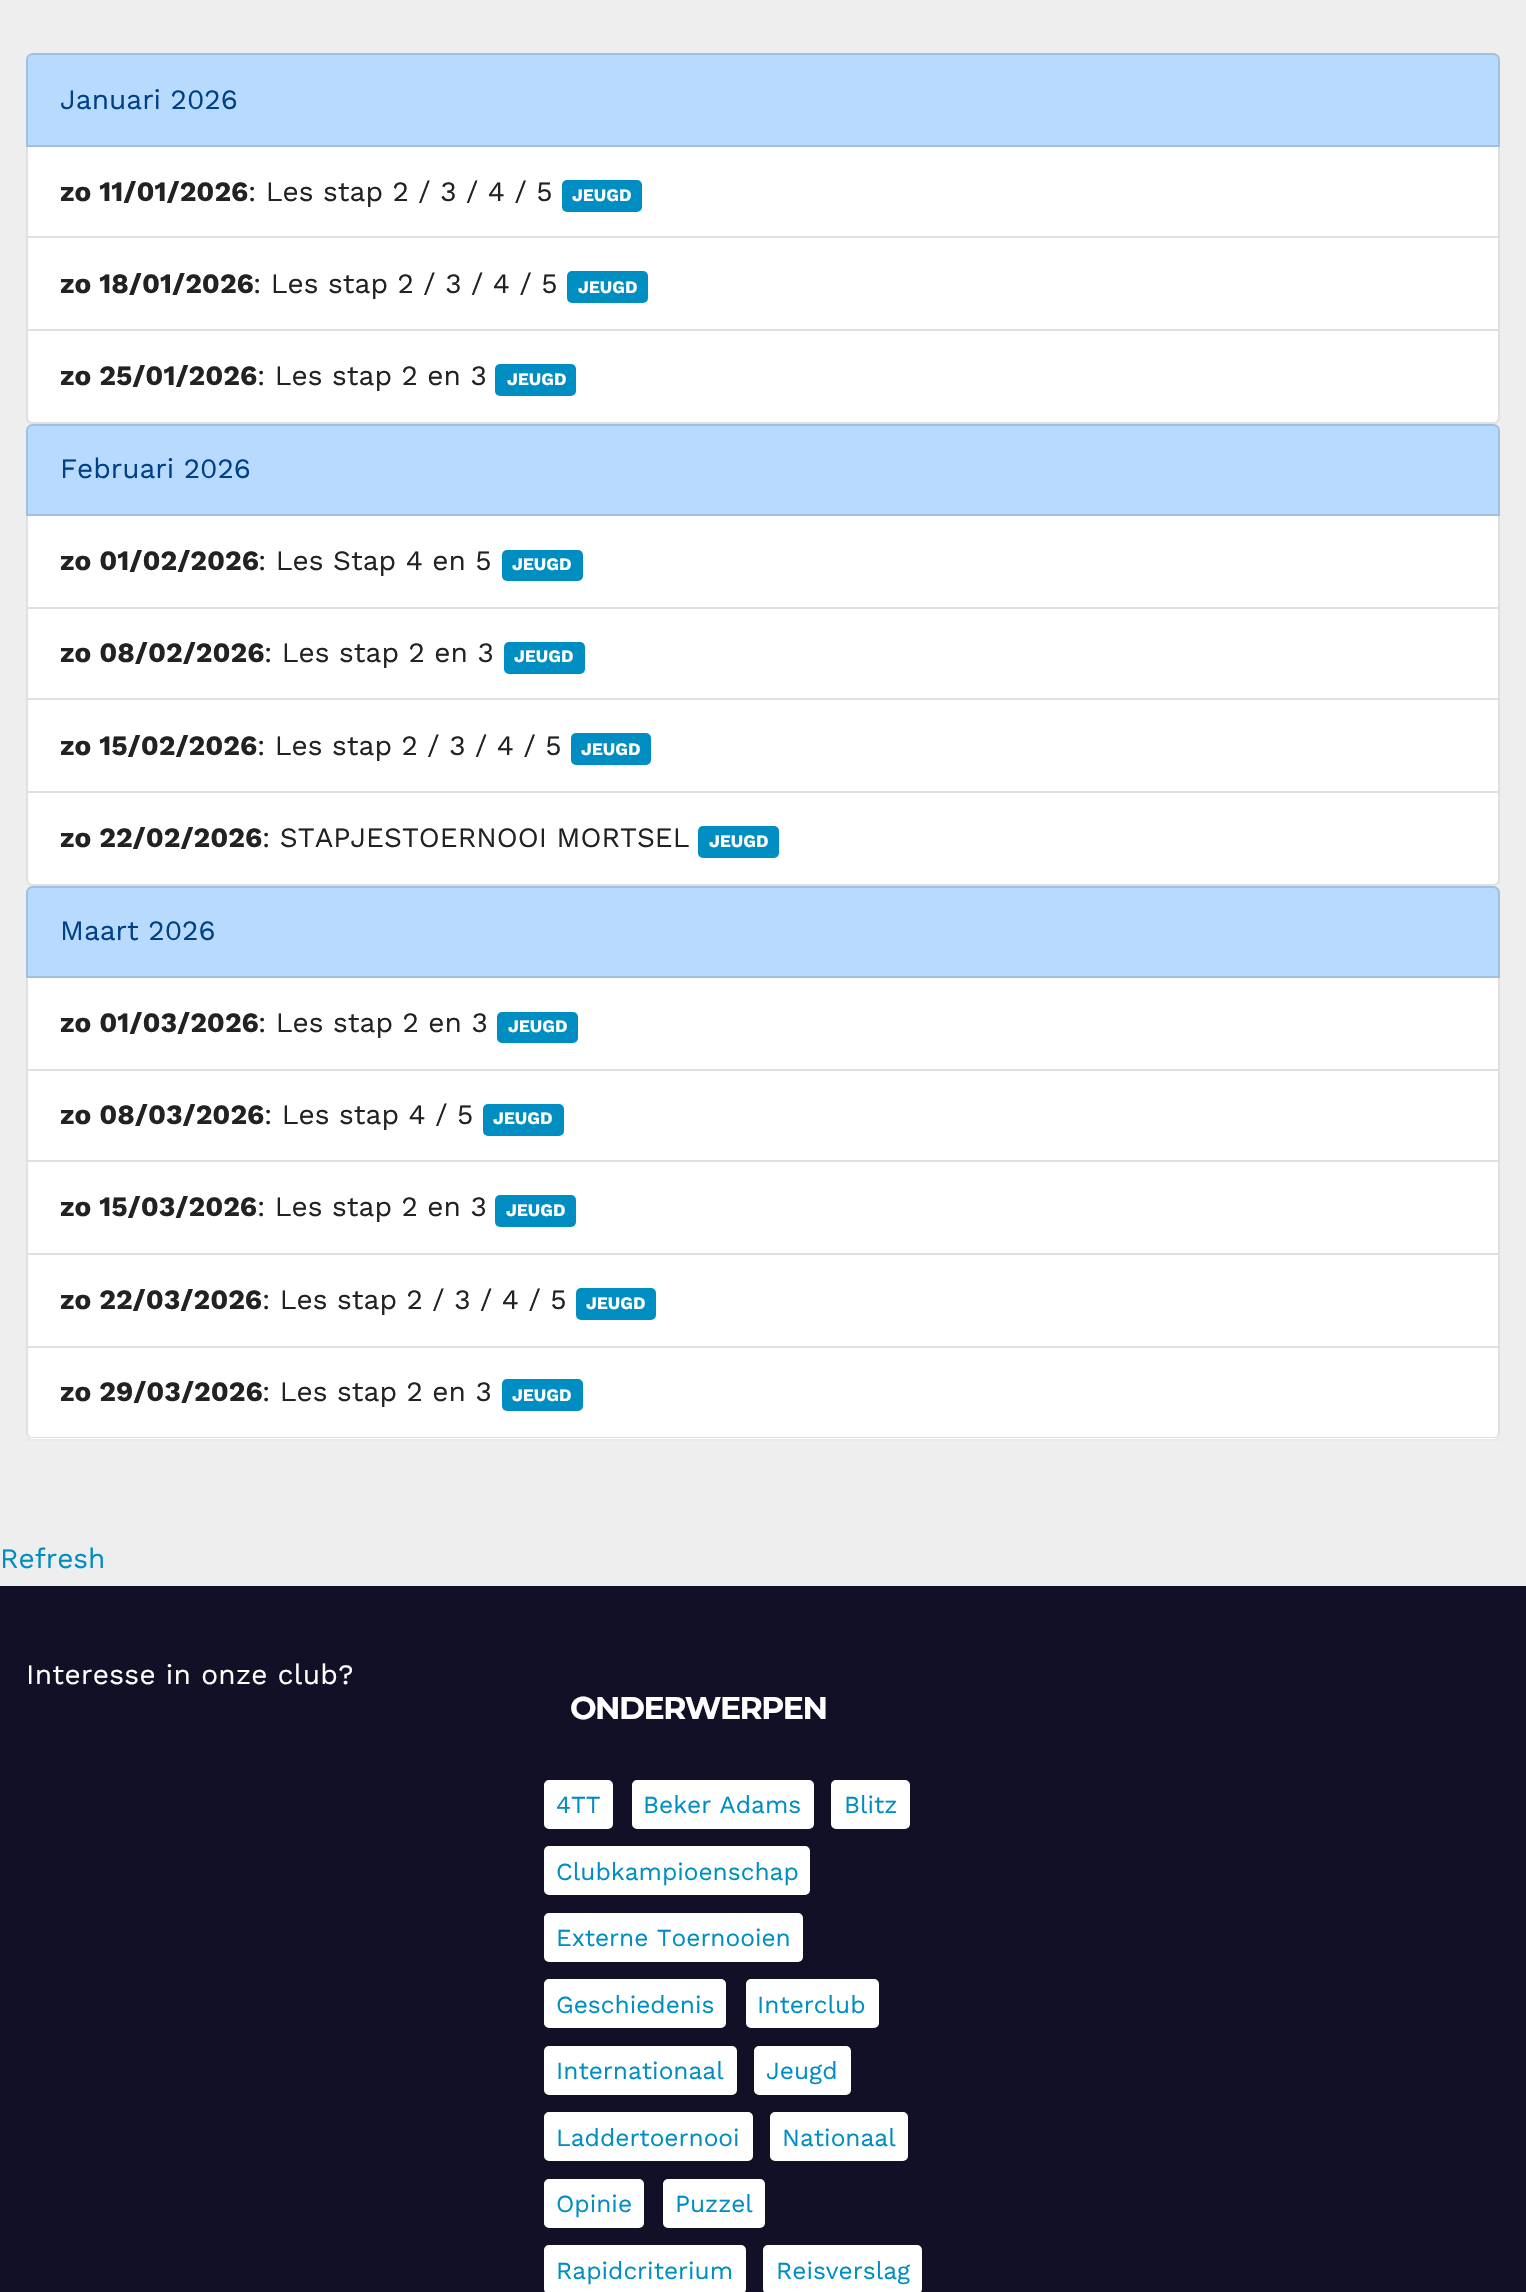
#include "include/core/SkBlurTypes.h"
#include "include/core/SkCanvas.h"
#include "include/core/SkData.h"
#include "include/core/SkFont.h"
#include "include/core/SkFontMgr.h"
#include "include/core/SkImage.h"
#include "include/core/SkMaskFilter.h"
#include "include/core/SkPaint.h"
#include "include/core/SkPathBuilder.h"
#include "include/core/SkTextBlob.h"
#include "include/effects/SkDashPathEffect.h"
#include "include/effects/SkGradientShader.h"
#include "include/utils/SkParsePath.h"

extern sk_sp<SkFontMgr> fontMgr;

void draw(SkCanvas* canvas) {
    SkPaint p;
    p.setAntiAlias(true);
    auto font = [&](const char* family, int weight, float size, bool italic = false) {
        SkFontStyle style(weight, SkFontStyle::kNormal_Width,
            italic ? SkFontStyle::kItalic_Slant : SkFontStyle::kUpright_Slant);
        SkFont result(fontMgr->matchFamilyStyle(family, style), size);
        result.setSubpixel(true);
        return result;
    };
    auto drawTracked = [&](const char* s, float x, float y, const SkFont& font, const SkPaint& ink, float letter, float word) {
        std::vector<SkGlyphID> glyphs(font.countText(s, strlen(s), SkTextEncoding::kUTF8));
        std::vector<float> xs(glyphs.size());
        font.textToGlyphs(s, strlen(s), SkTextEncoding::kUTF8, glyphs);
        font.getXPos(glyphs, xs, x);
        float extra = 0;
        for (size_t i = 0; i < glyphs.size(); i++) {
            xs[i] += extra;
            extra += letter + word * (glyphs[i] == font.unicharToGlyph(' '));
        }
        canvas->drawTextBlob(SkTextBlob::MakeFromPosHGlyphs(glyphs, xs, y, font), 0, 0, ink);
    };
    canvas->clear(0xFFEEEEEE);
    p.setColor(0xFFB8DAFF);
    canvas->drawPath(SkPathBuilder().moveTo(33, 53).lineTo(1493, 53).cubicTo(1497, 53, 1500, 56, 1500, 60).lineTo(1500, 147).lineTo(26, 147).lineTo(26, 60).cubicTo(26, 56, 29, 53, 33, 53).close().detach(), p);
    p.setStyle(SkPaint::kStroke_Style);
    p.setStrokeWidth(2);
    p.setColor(0x1F000000);
    canvas->drawPath(SkPathBuilder().moveTo(33, 54).lineTo(1493, 54).cubicTo(1496.5f, 54, 1499, 56.5f, 1499, 60).lineTo(1499, 146).lineTo(27, 146).lineTo(27, 60).cubicTo(27, 56.5f, 29.5f, 54, 33, 54).close().detach(), p);
    auto font1 = font("Work Sans", 400, 28);
    p.setStyle(SkPaint::kFill_Style);
    p.setColor(0xFF004085);
    canvas->drawString("Januari 2026", 60, 109, font1, p);
    p.setColor(0xFFFFFFFF);
    canvas->drawRect(SkRect::MakeLTRB(26, 147, 1500, 331), p);
    p.setColor(0xFFDFDFDF);
    canvas->drawPath(SkPathBuilder().moveTo(1500, 147).lineTo(1500, 238).lineTo(1498, 236).lineTo(1498, 147).close().detach(), p);
    p.setColor(0x1F000000);
    canvas->drawPath(SkPathBuilder().moveTo(1500, 238).lineTo(26, 238).lineTo(28, 236).lineTo(1498, 236).close().detach(), p);
    canvas->drawPath(SkPathBuilder().moveTo(26, 238).lineTo(26, 147).lineTo(28, 147).lineTo(28, 236).close().detach(), p);
    auto font2 = font("Work Sans", 700, 28);
    p.setColor(0xFF222222);
    canvas->drawString("zo 11/01/2026", 60, 201, font2, p);
    canvas->drawString(": Les stap 2 / 3 / 4 / 5", 248, 201, font1, p);
    p.setColor(0xFF008EC2);
    canvas->drawRoundRect(SkRect::MakeLTRB(562, 180, 642, 212), 5, 5, p);
    auto font3 = font("Work Sans", 700, 17.5f);
    p.setColor(0xFFFFFFFF);
    canvas->drawString("JEUGD", 572, 201, font3, p);
    p.setColor(0xFFDFDFDF);
    canvas->drawPath(SkPathBuilder().moveTo(1500, 238).lineTo(1500, 331).lineTo(1498, 329).lineTo(1498, 238).close().detach(), p);
    p.setColor(0x1F000000);
    canvas->drawPath(SkPathBuilder().moveTo(1500, 331).lineTo(26, 331).lineTo(28, 329).lineTo(1498, 329).close().detach(), p);
    canvas->drawPath(SkPathBuilder().moveTo(26, 331).lineTo(26, 238).lineTo(28, 238).lineTo(28, 329).close().detach(), p);
    p.setColor(0xFF222222);
    canvas->drawString("zo 18/01/2026", 60, 293, font2, p);
    canvas->drawString(": Les stap 2 / 3 / 4 / 5", 253, 293, font1, p);
    p.setColor(0xFF008EC2);
    canvas->drawRoundRect(SkRect::MakeLTRB(567, 271, 648, 303), 5, 5, p);
    p.setColor(0xFFFFFFFF);
    canvas->drawString("JEUGD", 578, 293, font3, p);
    canvas->drawPath(SkPathBuilder().moveTo(26, 331).lineTo(1500, 331).lineTo(1500, 417).cubicTo(1500, 421, 1497, 424, 1493, 424).lineTo(33, 424).cubicTo(29, 424, 26, 421, 26, 417).close().detach(), p);
    p.setColor(0x1F000000);
    canvas->drawPath(SkPathBuilder(SkPathFillType::kEvenOdd).moveTo(26, 331).lineTo(1500, 331).lineTo(1500, 417).cubicTo(1500, 421, 1497, 424, 1493, 424).lineTo(33, 424).cubicTo(29, 424, 26, 421, 26, 417).close().moveTo(28, 331).lineTo(1498, 331).lineTo(1498, 417).cubicTo(1498, 420, 1496, 422, 1493, 422).lineTo(33, 422).cubicTo(30, 422, 28, 420, 28, 417).close().detach(), p);
    p.setColor(0xFF222222);
    canvas->drawString("zo 25/01/2026", 60, 385, font2, p);
    canvas->drawString(": Les stap 2 en 3", 257, 385, font1, p);
    p.setColor(0xFF008EC2);
    canvas->drawRoundRect(SkRect::MakeLTRB(495, 364, 576, 396), 5, 5, p);
    p.setColor(0xFFFFFFFF);
    canvas->drawString("JEUGD", 507, 385, font3, p);
    p.setColor(0xFFB8DAFF);
    canvas->drawPath(SkPathBuilder().moveTo(33, 424).lineTo(1493, 424).cubicTo(1497, 424, 1500, 427, 1500, 431).lineTo(1500, 516).lineTo(26, 516).lineTo(26, 431).cubicTo(26, 427, 29, 424, 33, 424).close().detach(), p);
    p.setStyle(SkPaint::kStroke_Style);
    p.setColor(0x1F000000);
    canvas->drawPath(SkPathBuilder().moveTo(33, 425).lineTo(1493, 425).cubicTo(1496.5f, 425, 1499, 427.5f, 1499, 431).lineTo(1499, 515).lineTo(27, 515).lineTo(27, 431).cubicTo(27, 427.5f, 29.5f, 425, 33, 425).close().detach(), p);
    p.setStyle(SkPaint::kFill_Style);
    p.setColor(0xFF004085);
    canvas->drawString("Februari 2026", 60, 478, font1, p);
    p.setColor(0xFFFFFFFF);
    canvas->drawRect(SkRect::MakeLTRB(26, 516, 1500, 793), p);
    p.setColor(0xFFDFDFDF);
    canvas->drawPath(SkPathBuilder().moveTo(1500, 516).lineTo(1500, 609).lineTo(1498, 607).lineTo(1498, 516).close().detach(), p);
    p.setColor(0x1F000000);
    canvas->drawPath(SkPathBuilder().moveTo(1500, 609).lineTo(26, 609).lineTo(28, 607).lineTo(1498, 607).close().detach(), p);
    canvas->drawPath(SkPathBuilder().moveTo(26, 609).lineTo(26, 516).lineTo(28, 516).lineTo(28, 607).close().detach(), p);
    p.setColor(0xFF222222);
    canvas->drawString("zo 01/02/2026", 60, 570, font2, p);
    canvas->drawString(": Les Stap 4 en 5", 258, 570, font1, p);
    p.setColor(0xFF008EC2);
    canvas->drawRoundRect(SkRect::MakeLTRB(502, 550, 583, 581), 5, 5, p);
    p.setColor(0xFFFFFFFF);
    canvas->drawString("JEUGD", 512, 570, font3, p);
    p.setColor(0xFFDFDFDF);
    canvas->drawPath(SkPathBuilder().moveTo(1500, 609).lineTo(1500, 700).lineTo(1498, 698).lineTo(1498, 609).close().detach(), p);
    p.setColor(0x1F000000);
    canvas->drawPath(SkPathBuilder().moveTo(1500, 700).lineTo(26, 700).lineTo(28, 698).lineTo(1498, 698).close().detach(), p);
    canvas->drawPath(SkPathBuilder().moveTo(26, 700).lineTo(26, 609).lineTo(28, 609).lineTo(28, 698).close().detach(), p);
    p.setColor(0xFF222222);
    canvas->drawString("zo 08/02/2026", 60, 662, font2, p);
    canvas->drawString(": Les stap 2 en 3", 264, 662, font1, p);
    p.setColor(0xFF008EC2);
    canvas->drawRoundRect(SkRect::MakeLTRB(504, 642, 585, 674), 5, 5, p);
    p.setColor(0xFFFFFFFF);
    canvas->drawString("JEUGD", 514, 662, font3, p);
    p.setColor(0xFFDFDFDF);
    canvas->drawPath(SkPathBuilder().moveTo(1500, 700).lineTo(1500, 793).lineTo(1498, 791).lineTo(1498, 700).close().detach(), p);
    p.setColor(0x1F000000);
    canvas->drawPath(SkPathBuilder().moveTo(1500, 793).lineTo(26, 793).lineTo(28, 791).lineTo(1498, 791).close().detach(), p);
    canvas->drawPath(SkPathBuilder().moveTo(26, 793).lineTo(26, 700).lineTo(28, 700).lineTo(28, 791).close().detach(), p);
    p.setColor(0xFF222222);
    canvas->drawString("zo 15/02/2026", 60, 755, font2, p);
    canvas->drawString(": Les stap 2 / 3 / 4 / 5", 257, 755, font1, p);
    p.setColor(0xFF008EC2);
    canvas->drawRoundRect(SkRect::MakeLTRB(571, 733, 651, 765), 5, 5, p);
    p.setColor(0xFFFFFFFF);
    canvas->drawString("JEUGD", 581, 755, font3, p);
    canvas->drawPath(SkPathBuilder().moveTo(26, 793).lineTo(1500, 793).lineTo(1500, 879).cubicTo(1500, 883, 1497, 886, 1493, 886).lineTo(33, 886).cubicTo(29, 886, 26, 883, 26, 879).close().detach(), p);
    p.setColor(0x1F000000);
    canvas->drawPath(SkPathBuilder(SkPathFillType::kEvenOdd).moveTo(26, 793).lineTo(1500, 793).lineTo(1500, 879).cubicTo(1500, 883, 1497, 886, 1493, 886).lineTo(33, 886).cubicTo(29, 886, 26, 883, 26, 879).close().moveTo(28, 793).lineTo(1498, 793).lineTo(1498, 879).cubicTo(1498, 882, 1496, 884, 1493, 884).lineTo(33, 884).cubicTo(30, 884, 28, 882, 28, 879).close().detach(), p);
    p.setColor(0xFF222222);
    canvas->drawString("zo 22/02/2026", 60, 847, font2, p);
    canvas->drawString(": STAPJESTOERNOOI MORTSEL", 262, 847, font1, p);
    p.setColor(0xFF008EC2);
    canvas->drawRoundRect(SkRect::MakeLTRB(698, 826, 779, 858), 5, 5, p);
    p.setColor(0xFFFFFFFF);
    canvas->drawString("JEUGD", 709, 847, font3, p);
    p.setColor(0xFFB8DAFF);
    canvas->drawPath(SkPathBuilder().moveTo(33, 886).lineTo(1493, 886).cubicTo(1497, 886, 1500, 889, 1500, 893).lineTo(1500, 978).lineTo(26, 978).lineTo(26, 893).cubicTo(26, 889, 29, 886, 33, 886).close().detach(), p);
    p.setStyle(SkPaint::kStroke_Style);
    p.setColor(0x1F000000);
    canvas->drawPath(SkPathBuilder().moveTo(33, 887).lineTo(1493, 887).cubicTo(1496.5f, 887, 1499, 889.5f, 1499, 893).lineTo(1499, 977).lineTo(27, 977).lineTo(27, 893).cubicTo(27, 889.5f, 29.5f, 887, 33, 887).close().detach(), p);
    p.setStyle(SkPaint::kFill_Style);
    p.setColor(0xFF004085);
    canvas->drawString("Maart 2026", 60, 940, font1, p);
    p.setColor(0xFFFFFFFF);
    canvas->drawRect(SkRect::MakeLTRB(26, 978, 1500, 1348), p);
    p.setColor(0xFFDFDFDF);
    canvas->drawPath(SkPathBuilder().moveTo(1500, 978).lineTo(1500, 1071).lineTo(1498, 1069).lineTo(1498, 978).close().detach(), p);
    p.setColor(0x1F000000);
    canvas->drawPath(SkPathBuilder().moveTo(1500, 1071).lineTo(26, 1071).lineTo(28, 1069).lineTo(1498, 1069).close().detach(), p);
    canvas->drawPath(SkPathBuilder().moveTo(26, 1071).lineTo(26, 978).lineTo(28, 978).lineTo(28, 1069).close().detach(), p);
    p.setColor(0xFF222222);
    canvas->drawString("zo 01/03/2026", 60, 1032, font2, p);
    canvas->drawString(": Les stap 2 en 3", 258, 1032, font1, p);
    p.setColor(0xFF008EC2);
    canvas->drawRoundRect(SkRect::MakeLTRB(497, 1012, 578, 1043), 5, 5, p);
    p.setColor(0xFFFFFFFF);
    canvas->drawString("JEUGD", 508, 1032, font3, p);
    p.setColor(0xFFDFDFDF);
    canvas->drawPath(SkPathBuilder().moveTo(1500, 1071).lineTo(1500, 1162).lineTo(1498, 1160).lineTo(1498, 1071).close().detach(), p);
    p.setColor(0x1F000000);
    canvas->drawPath(SkPathBuilder().moveTo(1500, 1162).lineTo(26, 1162).lineTo(28, 1160).lineTo(1498, 1160).close().detach(), p);
    canvas->drawPath(SkPathBuilder().moveTo(26, 1162).lineTo(26, 1071).lineTo(28, 1071).lineTo(28, 1160).close().detach(), p);
    p.setColor(0xFF222222);
    canvas->drawString("zo 08/03/2026", 60, 1124, font2, p);
    canvas->drawString(": Les stap 4 / 5", 264, 1124, font1, p);
    p.setColor(0xFF008EC2);
    canvas->drawRoundRect(SkRect::MakeLTRB(483, 1104, 564, 1136), 5, 5, p);
    p.setColor(0xFFFFFFFF);
    canvas->drawString("JEUGD", 493, 1124, font3, p);
    p.setColor(0xFFDFDFDF);
    canvas->drawPath(SkPathBuilder().moveTo(1500, 1162).lineTo(1500, 1255).lineTo(1498, 1253).lineTo(1498, 1162).close().detach(), p);
    p.setColor(0x1F000000);
    canvas->drawPath(SkPathBuilder().moveTo(1500, 1255).lineTo(26, 1255).lineTo(28, 1253).lineTo(1498, 1253).close().detach(), p);
    canvas->drawPath(SkPathBuilder().moveTo(26, 1255).lineTo(26, 1162).lineTo(28, 1162).lineTo(28, 1253).close().detach(), p);
    p.setColor(0xFF222222);
    canvas->drawString("zo 15/03/2026", 60, 1216, font2, p);
    canvas->drawString(": Les stap 2 en 3", 257, 1216, font1, p);
    p.setColor(0xFF008EC2);
    canvas->drawRoundRect(SkRect::MakeLTRB(495, 1195, 576, 1227), 5, 5, p);
    p.setColor(0xFFFFFFFF);
    canvas->drawString("JEUGD", 506, 1216, font3, p);
    p.setColor(0xFFDFDFDF);
    canvas->drawPath(SkPathBuilder().moveTo(1500, 1255).lineTo(1500, 1348).lineTo(1498, 1346).lineTo(1498, 1255).close().detach(), p);
    p.setColor(0x1F000000);
    canvas->drawPath(SkPathBuilder().moveTo(1500, 1348).lineTo(26, 1348).lineTo(28, 1346).lineTo(1498, 1346).close().detach(), p);
    canvas->drawPath(SkPathBuilder().moveTo(26, 1348).lineTo(26, 1255).lineTo(28, 1255).lineTo(28, 1346).close().detach(), p);
    p.setColor(0xFF222222);
    canvas->drawString("zo 22/03/2026", 60, 1309, font2, p);
    canvas->drawString(": Les stap 2 / 3 / 4 / 5", 262, 1309, font1, p);
    p.setColor(0xFF008EC2);
    canvas->drawRoundRect(SkRect::MakeLTRB(576, 1288, 656, 1320), 5, 5, p);
    p.setColor(0xFFFFFFFF);
    canvas->drawString("JEUGD", 586, 1309, font3, p);
    p.setColor(0xFFE9E9E9);
    canvas->drawRect(SkRect::MakeLTRB(26, 1437, 1500, 1441), p);
    p.setColor(0xFFFFFFFF);
    canvas->drawPath(SkPathBuilder().moveTo(26, 1348).lineTo(1500, 1348).lineTo(1500, 1432).cubicTo(1500, 1436, 1497, 1439, 1493, 1439).lineTo(33, 1439).cubicTo(29, 1439, 26, 1436, 26, 1432).close().detach(), p);
    p.setColor(0x1F000000);
    canvas->drawPath(SkPathBuilder(SkPathFillType::kEvenOdd).moveTo(26, 1348).lineTo(1500, 1348).lineTo(1500, 1432).cubicTo(1500, 1436, 1497, 1438, 1493, 1438).lineTo(33, 1438).cubicTo(29, 1438, 26, 1436, 26, 1432).close().moveTo(28, 1348).lineTo(1498, 1348).lineTo(1498, 1432).cubicTo(1498, 1435, 1496, 1437, 1493, 1437).lineTo(33, 1437).cubicTo(30, 1437, 28, 1435, 28, 1432).close().detach(), p);
    p.setColor(0xFF222222);
    canvas->drawString("zo 29/03/2026", 60, 1401, font2, p);
    canvas->drawString(": Les stap 2 en 3", 262, 1401, font1, p);
    p.setColor(0xFF008EC2);
    canvas->drawRoundRect(SkRect::MakeLTRB(502, 1379, 583, 1411), 5, 5, p);
    p.setColor(0xFFFFFFFF);
    canvas->drawString("JEUGD", 512, 1401, font3, p);
    p.setColor(0xFF008EC2);
    canvas->drawString("Refresh", 0, 1568, font1, p);
    p.setColor(0xFF121026);
    canvas->drawRect(SkRect::MakeLTRB(0, 1586, 1526, 2292), p);
    p.setColor(0xFFFFFFFF);
    drawTracked("Interesse in onze club?", 26, 1684, font1, p, 0.35f, 0);
    auto font4 = font("Montserrat", 700, 31.5f);
    drawTracked("ONDERWERPEN", 570, 1719, font4, p, -1.5f, 0);
    canvas->drawRoundRect(SkRect::MakeLTRB(545, 1781, 612, 1828), 4, 4, p);
    p.setStyle(SkPaint::kStroke_Style);
    canvas->drawRoundRect(SkRect::MakeLTRB(545, 1781, 612, 1828), 4, 4, p);
    auto font5 = font("Work Sans", 400, 24.5f);
    p.setStyle(SkPaint::kFill_Style);
    p.setColor(0xFF008EC2);
    canvas->drawString("4TT", 556, 1813, font5, p);
    p.setColor(0xFFFFFFFF);
    canvas->drawRoundRect(SkRect::MakeLTRB(633, 1781, 813, 1828), 4, 4, p);
    p.setStyle(SkPaint::kStroke_Style);
    canvas->drawRoundRect(SkRect::MakeLTRB(633, 1781, 813, 1828), 4, 4, p);
    p.setStyle(SkPaint::kFill_Style);
    p.setColor(0xFF008EC2);
    canvas->drawString("Beker Adams", 643, 1813, font5, p);
    p.setColor(0xFFFFFFFF);
    canvas->drawRoundRect(SkRect::MakeLTRB(832, 1781, 909, 1828), 4, 4, p);
    p.setStyle(SkPaint::kStroke_Style);
    canvas->drawRoundRect(SkRect::MakeLTRB(832, 1781, 909, 1828), 4, 4, p);
    p.setStyle(SkPaint::kFill_Style);
    p.setColor(0xFF008EC2);
    canvas->drawString("Blitz", 844, 1813, font5, p);
    p.setColor(0xFFFFFFFF);
    canvas->drawRoundRect(SkRect::MakeLTRB(545, 1847, 809, 1894), 4, 4, p);
    p.setStyle(SkPaint::kStroke_Style);
    canvas->drawRoundRect(SkRect::MakeLTRB(545, 1847, 809, 1894), 4, 4, p);
    p.setStyle(SkPaint::kFill_Style);
    p.setColor(0xFF008EC2);
    canvas->drawString("Clubkampioenschap", 556, 1880, font5, p);
    p.setColor(0xFFFFFFFF);
    canvas->drawRoundRect(SkRect::MakeLTRB(545, 1914, 802, 1961), 4, 4, p);
    p.setStyle(SkPaint::kStroke_Style);
    canvas->drawRoundRect(SkRect::MakeLTRB(545, 1914, 802, 1961), 4, 4, p);
    p.setStyle(SkPaint::kFill_Style);
    p.setColor(0xFF008EC2);
    canvas->drawString("Externe Toernooien", 556, 1946, font5, p);
    p.setColor(0xFFFFFFFF);
    canvas->drawRoundRect(SkRect::MakeLTRB(545, 1980, 725, 2027), 4, 4, p);
    p.setStyle(SkPaint::kStroke_Style);
    canvas->drawRoundRect(SkRect::MakeLTRB(545, 1980, 725, 2027), 4, 4, p);
    p.setStyle(SkPaint::kFill_Style);
    p.setColor(0xFF008EC2);
    canvas->drawString("Geschiedenis", 556, 2013, font5, p);
    p.setColor(0xFFFFFFFF);
    canvas->drawRoundRect(SkRect::MakeLTRB(747, 1980, 878, 2027), 4, 4, p);
    p.setStyle(SkPaint::kStroke_Style);
    canvas->drawRoundRect(SkRect::MakeLTRB(747, 1980, 878, 2027), 4, 4, p);
    p.setStyle(SkPaint::kFill_Style);
    p.setColor(0xFF008EC2);
    canvas->drawString("Interclub", 757, 2013, font5, p);
    p.setColor(0xFFFFFFFF);
    canvas->drawRoundRect(SkRect::MakeLTRB(545, 2047, 736, 2094), 4, 4, p);
    p.setStyle(SkPaint::kStroke_Style);
    canvas->drawRoundRect(SkRect::MakeLTRB(545, 2047, 736, 2094), 4, 4, p);
    p.setStyle(SkPaint::kFill_Style);
    p.setColor(0xFF008EC2);
    canvas->drawString("Internationaal", 556, 2079, font5, p);
    p.setColor(0xFFFFFFFF);
    canvas->drawRoundRect(SkRect::MakeLTRB(755, 2047, 850, 2094), 4, 4, p);
    p.setStyle(SkPaint::kStroke_Style);
    canvas->drawRoundRect(SkRect::MakeLTRB(755, 2047, 850, 2094), 4, 4, p);
    p.setStyle(SkPaint::kFill_Style);
    p.setColor(0xFF008EC2);
    canvas->drawString("Jeugd", 766, 2079, font5, p);
    p.setColor(0xFFFFFFFF);
    canvas->drawRoundRect(SkRect::MakeLTRB(545, 2113, 752, 2160), 4, 4, p);
    p.setStyle(SkPaint::kStroke_Style);
    canvas->drawRoundRect(SkRect::MakeLTRB(545, 2113, 752, 2160), 4, 4, p);
    p.setStyle(SkPaint::kFill_Style);
    p.setColor(0xFF008EC2);
    canvas->drawString("Laddertoernooi", 556, 2146, font5, p);
    p.setColor(0xFFFFFFFF);
    canvas->drawRoundRect(SkRect::MakeLTRB(771, 2113, 907, 2160), 4, 4, p);
    p.setStyle(SkPaint::kStroke_Style);
    canvas->drawRoundRect(SkRect::MakeLTRB(771, 2113, 907, 2160), 4, 4, p);
    p.setStyle(SkPaint::kFill_Style);
    p.setColor(0xFF008EC2);
    canvas->drawString("Nationaal", 782, 2146, font5, p);
    p.setColor(0xFFFFFFFF);
    canvas->drawRoundRect(SkRect::MakeLTRB(545, 2180, 643, 2227), 4, 4, p);
    p.setStyle(SkPaint::kStroke_Style);
    canvas->drawRoundRect(SkRect::MakeLTRB(545, 2180, 643, 2227), 4, 4, p);
    p.setStyle(SkPaint::kFill_Style);
    p.setColor(0xFF008EC2);
    canvas->drawString("Opinie", 556, 2212, font5, p);
    p.setColor(0xFFFFFFFF);
    canvas->drawRoundRect(SkRect::MakeLTRB(664, 2180, 764, 2227), 4, 4, p);
    p.setStyle(SkPaint::kStroke_Style);
    canvas->drawRoundRect(SkRect::MakeLTRB(664, 2180, 764, 2227), 4, 4, p);
    p.setStyle(SkPaint::kFill_Style);
    p.setColor(0xFF008EC2);
    canvas->drawString("Puzzel", 675, 2212, font5, p);
    p.setColor(0xFFFFFFFF);
    canvas->drawRoundRect(SkRect::MakeLTRB(545, 2246, 745, 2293), 4, 4, p);
    p.setStyle(SkPaint::kStroke_Style);
    canvas->drawRoundRect(SkRect::MakeLTRB(545, 2246, 745, 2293), 4, 4, p);
    p.setStyle(SkPaint::kFill_Style);
    p.setColor(0xFF008EC2);
    canvas->drawString("Rapidcriterium", 556, 2279, font5, p);
    p.setColor(0xFFFFFFFF);
    canvas->drawRoundRect(SkRect::MakeLTRB(764, 2246, 921, 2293), 4, 4, p);
    p.setStyle(SkPaint::kStroke_Style);
    canvas->drawRoundRect(SkRect::MakeLTRB(764, 2246, 921, 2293), 4, 4, p);
    p.setStyle(SkPaint::kFill_Style);
    p.setColor(0xFF008EC2);
    canvas->drawString("Reisverslag", 776, 2279, font5, p);
}
